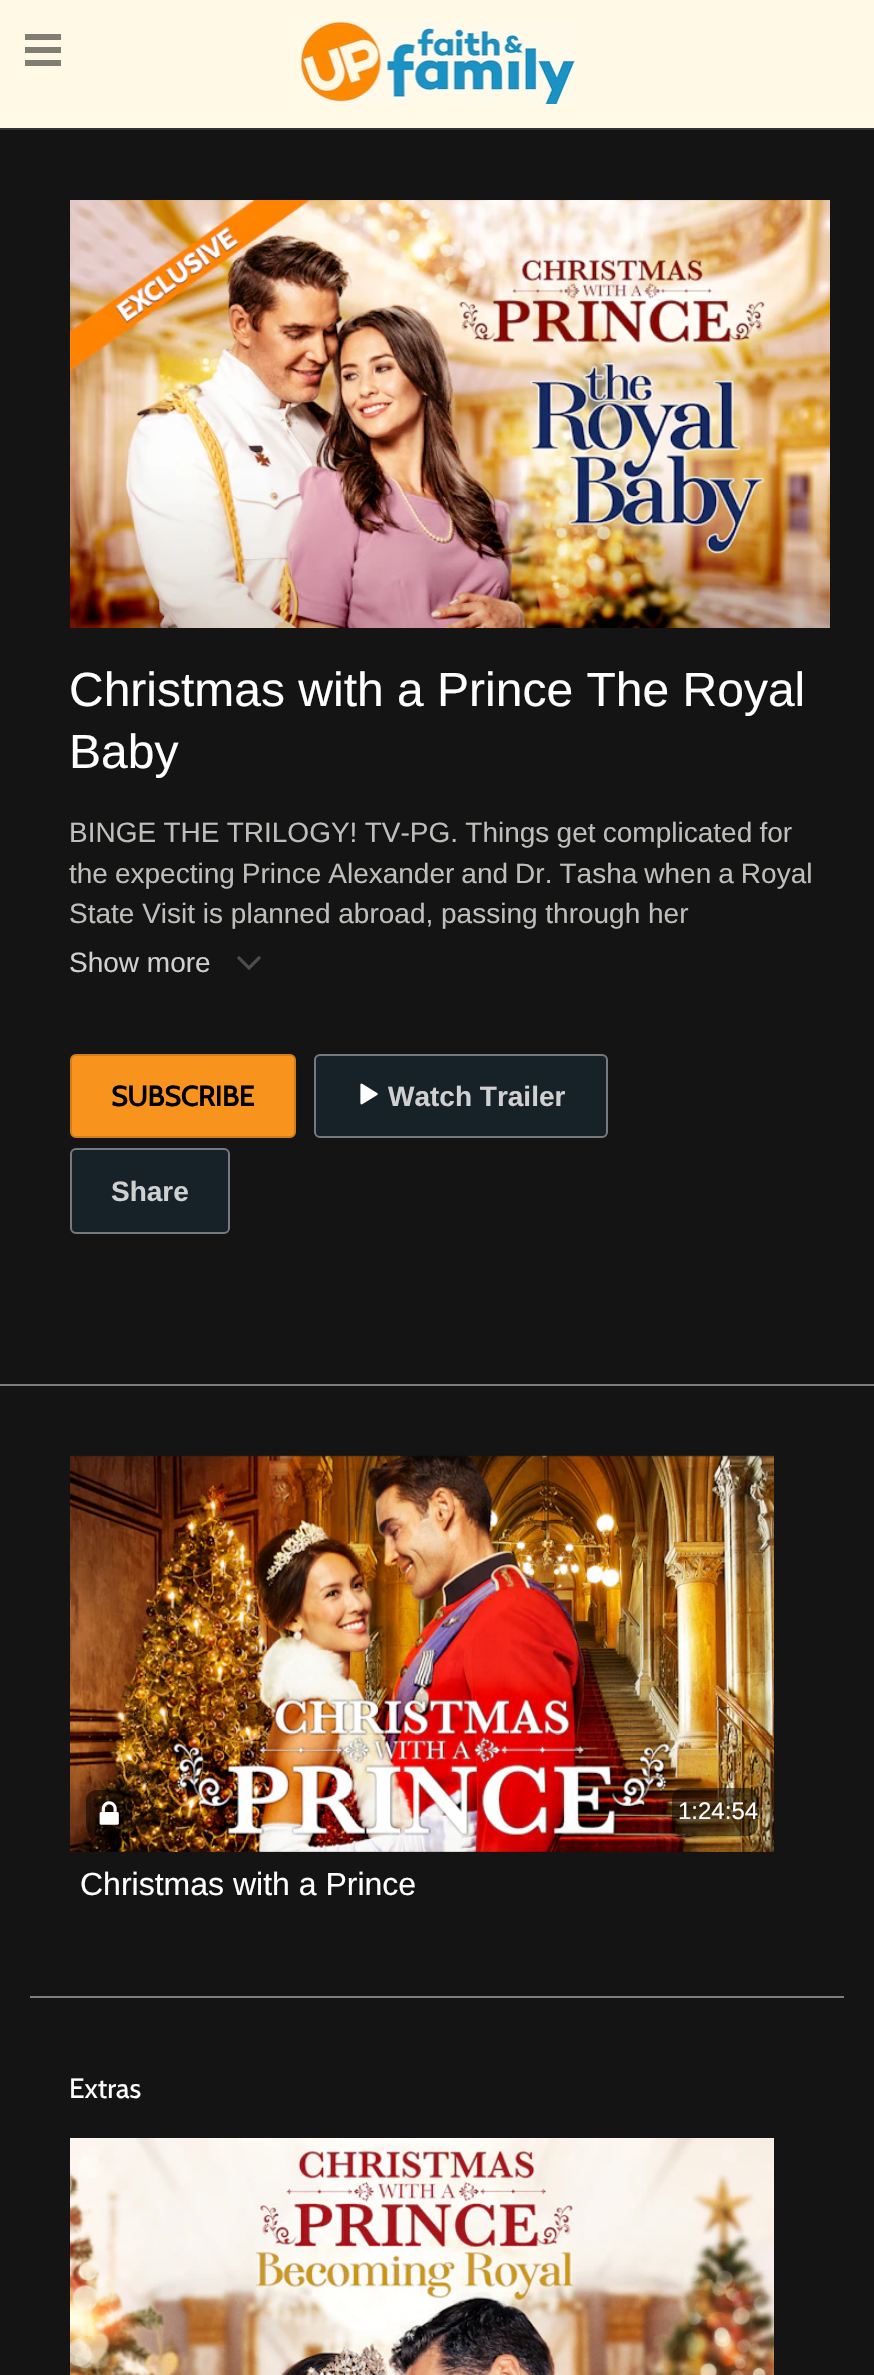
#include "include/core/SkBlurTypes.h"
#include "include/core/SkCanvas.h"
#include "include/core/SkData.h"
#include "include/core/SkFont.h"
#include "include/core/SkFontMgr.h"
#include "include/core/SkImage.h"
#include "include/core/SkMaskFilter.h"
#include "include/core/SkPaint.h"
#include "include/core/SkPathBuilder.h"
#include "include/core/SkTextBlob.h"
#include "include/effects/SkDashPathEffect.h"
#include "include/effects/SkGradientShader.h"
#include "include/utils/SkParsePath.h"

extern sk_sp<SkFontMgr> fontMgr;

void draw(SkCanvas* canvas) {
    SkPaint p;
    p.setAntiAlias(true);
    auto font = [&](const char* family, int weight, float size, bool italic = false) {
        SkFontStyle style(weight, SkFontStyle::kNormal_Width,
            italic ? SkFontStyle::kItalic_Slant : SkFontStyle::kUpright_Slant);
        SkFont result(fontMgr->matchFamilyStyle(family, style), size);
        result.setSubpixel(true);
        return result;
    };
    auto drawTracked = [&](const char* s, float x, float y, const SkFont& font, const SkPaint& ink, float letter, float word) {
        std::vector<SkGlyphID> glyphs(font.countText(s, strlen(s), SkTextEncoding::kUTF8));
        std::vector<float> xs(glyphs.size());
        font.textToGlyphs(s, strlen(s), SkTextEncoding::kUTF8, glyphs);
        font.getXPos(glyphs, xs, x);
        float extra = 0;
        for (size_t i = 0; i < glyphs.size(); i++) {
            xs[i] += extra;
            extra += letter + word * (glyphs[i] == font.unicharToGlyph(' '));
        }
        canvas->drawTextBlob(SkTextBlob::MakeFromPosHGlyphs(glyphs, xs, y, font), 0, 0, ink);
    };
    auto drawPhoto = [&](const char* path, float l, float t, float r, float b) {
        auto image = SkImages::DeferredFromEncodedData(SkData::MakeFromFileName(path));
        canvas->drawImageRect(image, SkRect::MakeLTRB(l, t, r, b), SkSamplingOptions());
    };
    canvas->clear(0xFF141414);
    {
        const struct { float l, t, r, b; SkColor color; } items[] = {
            {0, 0, 874, 128, 0xFFFFF9E5},
            {0, 128, 874, 130, 0xFF323232},
            {25, 34, 61, 40, 0xFF807D73},
            {25, 47, 61, 53, 0xFF807D73},
            {25, 60, 61, 66, 0xFF807D73},
        };
        for (auto [l, t, r, b, color] : items) {
            p.setColor(color);
            canvas->drawRect(SkRect::MakeLTRB(l, t, r, b), p);
        }
    }
    drawPhoto("media/1.png", 299, 20, 575, 104);
    p.setColor(0xFF7C7E7F);
    canvas->drawRect(SkRect::MakeLTRB(0, 1384, 874, 1386), p);
    drawPhoto("media/2.png", 70, 200, 830, 628);
    auto font1 = font("Liberation Sans", 400, 48);
    p.setColor(0xFFFFFFFF);
    canvas->drawString("Christmas with a Prince The Royal", 69, 706, font1, p);
    canvas->drawString("Baby", 69, 768, font1, p);
    auto font2 = font("Liberation Sans", 400, 28);
    p.setColor(0xFFBEBEBB);
    drawTracked("BINGE THE TRILOGY! TV-PG. Things get complicated for", 69, 842, font2, p, 0, -0.5f);
    drawTracked("the expecting Prince Alexander and Dr. Tasha when a Royal", 69, 883, font2, p, 0, -0.75f);
    canvas->drawString("State Visit is planned abroad, passing through her", 69, 923, font2, p);
    p.setColor(0xFFD0D0D0);
    canvas->drawString("Show more", 69, 972, font2, p);
    drawPhoto("media/3.png", 237, 956, 261, 970);
    p.setColor(0xFFF8931D);
    canvas->drawRoundRect(SkRect::MakeLTRB(71, 1055, 295, 1137), 5, 5, p);
    p.setStyle(SkPaint::kStroke_Style);
    p.setStrokeWidth(2);
    p.setColor(0xFFD37D19);
    canvas->drawRoundRect(SkRect::MakeLTRB(71, 1055, 295, 1137), 5, 5, p);
    auto font3 = font("Cabin", 700, 28);
    p.setStyle(SkPaint::kFill_Style);
    p.setColor(0xFF000000);
    canvas->drawString("SUBSCRIBE", 111, 1106, font3, p);
    p.setColor(0xFF172128);
    canvas->drawRoundRect(SkRect::MakeLTRB(314, 1054, 608, 1138), 6, 6, p);
    p.setStyle(SkPaint::kStroke_Style);
    p.setColor(0x66FFFFFF);
    canvas->drawRoundRect(SkRect::MakeLTRB(315, 1055, 607, 1137), 5, 5, p);
    drawPhoto("media/4.png", 360, 1083, 378, 1105);
    auto font4 = font("Liberation Sans", 700, 28);
    p.setStyle(SkPaint::kFill_Style);
    p.setColor(0xFFD0D0D0);
    canvas->drawString("Watch Trailer", 388, 1106, font4, p);
    p.setColor(0xFF172128);
    canvas->drawRoundRect(SkRect::MakeLTRB(70, 1148, 230, 1234), 6, 6, p);
    p.setStyle(SkPaint::kStroke_Style);
    p.setColor(0x66FFFFFF);
    canvas->drawRoundRect(SkRect::MakeLTRB(71, 1149, 229, 1233), 5, 5, p);
    p.setStyle(SkPaint::kFill_Style);
    p.setColor(0xFFD0D0D0);
    canvas->drawString("Share", 111, 1201, font4, p);
    drawPhoto("media/5.png", 70, 1455, 774, 1852);
    p.setColor(0x80000000);
    canvas->drawRoundRect(SkRect::MakeLTRB(86, 1790, 132, 1836), 10, 10, p);
    drawPhoto("media/6.png", 99, 1801, 119, 1825);
    canvas->drawRoundRect(SkRect::MakeLTRB(672, 1788, 758, 1836), 10, 10, p);
    auto font5 = font("Liberation Sans", 400, 24);
    p.setColor(0xFFFFFFFF);
    canvas->drawString("1:24:54", 678, 1819, font5, p);
    auto font6 = font("Liberation Sans", 400, 32);
    canvas->drawString("Christmas with a Prince", 80, 1895, font6, p);
    p.setColor(0xFF7C7E7F);
    canvas->drawRect(SkRect::MakeLTRB(30, 1996, 844, 1998), p);
    auto font7 = font("Cabin", 400, 28);
    p.setColor(0xFFFFFFFF);
    canvas->drawString("Extras", 69, 2098, font7, p);
    drawPhoto("media/7.png", 70, 2138, 774, 2375);
}
